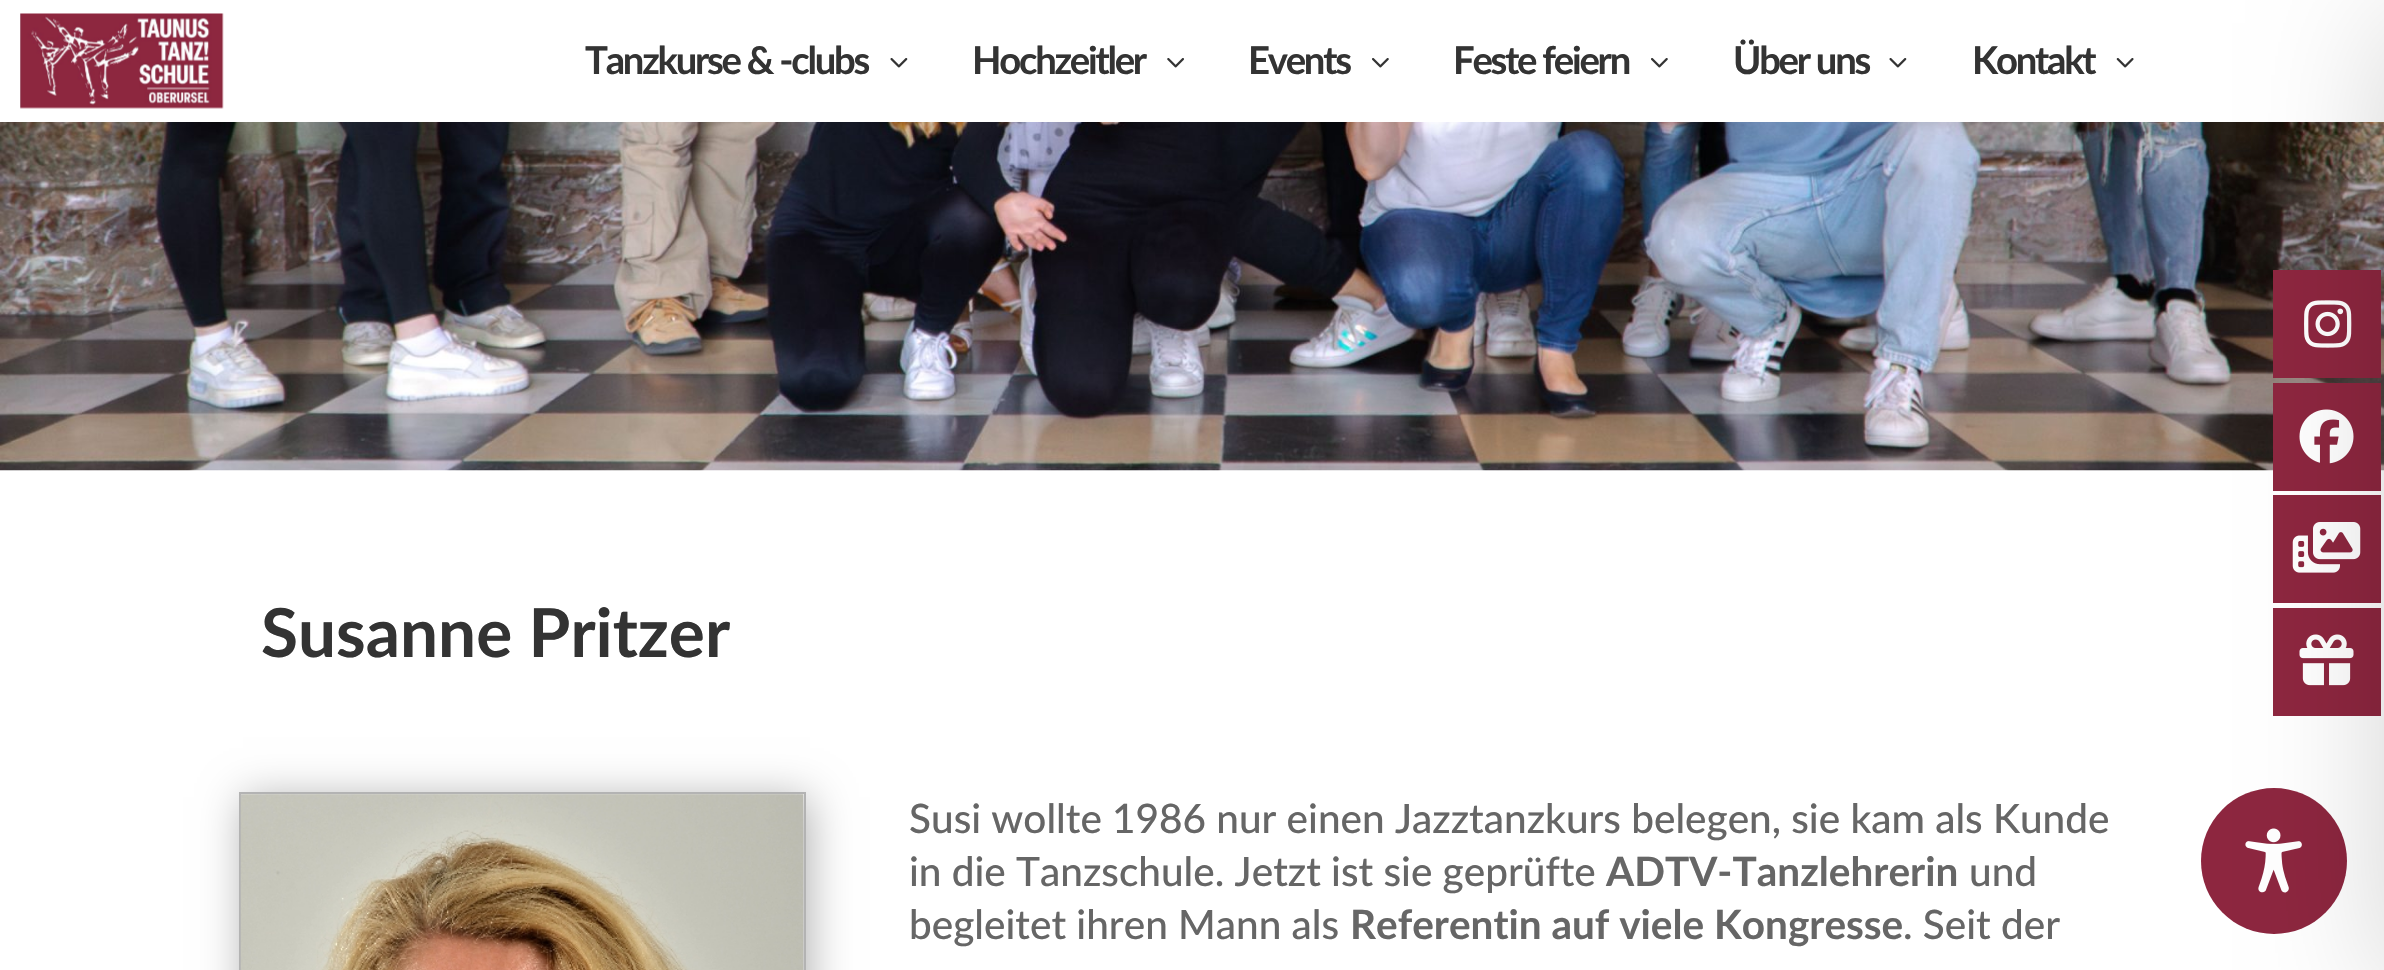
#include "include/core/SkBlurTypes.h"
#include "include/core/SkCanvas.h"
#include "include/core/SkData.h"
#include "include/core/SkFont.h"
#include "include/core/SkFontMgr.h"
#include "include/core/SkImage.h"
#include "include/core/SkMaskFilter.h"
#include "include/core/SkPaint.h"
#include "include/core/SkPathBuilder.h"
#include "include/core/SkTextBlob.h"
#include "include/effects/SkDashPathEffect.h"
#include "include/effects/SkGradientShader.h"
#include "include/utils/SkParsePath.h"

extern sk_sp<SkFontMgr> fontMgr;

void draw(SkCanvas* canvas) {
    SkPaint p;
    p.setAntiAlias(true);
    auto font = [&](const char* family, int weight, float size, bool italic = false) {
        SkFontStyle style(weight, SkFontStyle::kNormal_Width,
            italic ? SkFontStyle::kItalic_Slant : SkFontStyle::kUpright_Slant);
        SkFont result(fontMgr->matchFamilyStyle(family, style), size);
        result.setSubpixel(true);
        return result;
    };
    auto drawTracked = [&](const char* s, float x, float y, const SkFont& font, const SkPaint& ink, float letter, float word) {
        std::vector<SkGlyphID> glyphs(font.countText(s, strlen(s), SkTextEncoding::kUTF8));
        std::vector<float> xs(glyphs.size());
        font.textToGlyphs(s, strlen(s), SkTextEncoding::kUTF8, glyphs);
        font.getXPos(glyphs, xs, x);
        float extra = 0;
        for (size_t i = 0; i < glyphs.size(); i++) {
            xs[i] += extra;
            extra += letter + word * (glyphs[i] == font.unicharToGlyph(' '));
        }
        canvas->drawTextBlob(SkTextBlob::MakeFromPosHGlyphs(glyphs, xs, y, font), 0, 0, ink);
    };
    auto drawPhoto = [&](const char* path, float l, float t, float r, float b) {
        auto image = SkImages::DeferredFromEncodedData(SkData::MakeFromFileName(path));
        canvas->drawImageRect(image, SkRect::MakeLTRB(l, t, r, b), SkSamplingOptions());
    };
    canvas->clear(0xFFFFFFFF);
    drawPhoto("media/1.png", 20, 13, 224, 109);
    auto font1 = font("Lato", 700, 38.25f);
    p.setColor(0xFF333333);
    drawTracked("Tanzkurse & -clubs", 585, 74, font1, p, -2.25f, 0);
    drawPhoto("media/2.png", 890, 58, 908, 68);
    drawTracked("Hochzeitler", 972, 74, font1, p, -2.25f, 0);
    drawPhoto("media/3.png", 1167, 58, 1184, 68);
    drawTracked("Events", 1248, 74, font1, p, -2.25f, 0);
    drawPhoto("media/4.png", 1372, 58, 1389, 68);
    drawTracked("Feste feiern", 1453, 74, font1, p, -2.25f, 0);
    drawPhoto("media/4.png", 1651, 58, 1668, 68);
    drawTracked("Über uns", 1733, 74, font1, p, -2.25f, 0);
    drawPhoto("media/2.png", 1889, 58, 1907, 68);
    drawTracked("Kontakt", 1972, 74, font1, p, -2.25f, 0);
    drawPhoto("media/5.png", 2116, 58, 2134, 68);
    drawPhoto("media/6.png", 0, 122, 2384, 471);
    auto font2 = font("Lato", 700, 67.5f);
    canvas->drawString("Susanne Pritzer", 261, 657, font2, p);
    p.setColor(0x4D000000);
    p.setMaskFilter(SkMaskFilter::MakeBlur(kNormal_SkBlurStyle, 20));
    canvas->drawRect(SkRect::MakeLTRB(243, 797, 810, 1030), p);
    p.setMaskFilter(nullptr);
    p.setStyle(SkPaint::kStroke_Style);
    p.setStrokeWidth(2);
    p.setColor(0xFFB3B3B3);
    canvas->drawRect(SkRect::MakeLTRB(240, 793, 805, 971), p);
    drawPhoto("media/7.png", 240, 794, 804, 970);
    auto font3 = font("Lato", 500, 40.5f);
    p.setStyle(SkPaint::kFill_Style);
    p.setColor(0xFF666666);
    canvas->drawString("Susi wollte 1986 nur einen Jazztanzkurs belegen, sie kam als Kunde", 909, 833, font3, p);
    canvas->drawString("in die Tanzschule. Jetzt ist sie geprüfte", 909, 886, font3, p);
    auto font4 = font("Lato", 700, 40.5f);
    canvas->drawString("ADTV-Tanzlehrerin", 1606, 886, font4, p);
    canvas->drawString("und", 1969, 886, font3, p);
    canvas->drawString("begleitet ihren Mann als", 909, 939, font3, p);
    canvas->drawString("Referentin auf viele Kongresse", 1350, 939, font4, p);
    canvas->drawString(". Seit der", 1903, 939, font3, p);
    p.setColor(0xFF8D263F);
    canvas->drawRect(SkRect::MakeLTRB(2273, 270, 2381, 378), p);
    drawPhoto("media/8.png", 2304, 300, 2352, 348);
    canvas->drawRect(SkRect::MakeLTRB(2273, 383, 2381, 491), p);
    drawPhoto("media/9.png", 2299, 409, 2354, 464);
    canvas->drawRect(SkRect::MakeLTRB(2273, 495, 2381, 603), p);
    drawPhoto("media/10.png", 2292, 522, 2361, 573);
    canvas->drawRect(SkRect::MakeLTRB(2273, 608, 2381, 716), p);
    drawPhoto("media/11.png", 2299, 634, 2354, 686);
    canvas->drawCircle(2274, 861, 73, p);
    drawPhoto("media/12.png", 2245, 828, 2302, 893);
    p.setColor(0x33000000);
    p.setMaskFilter(SkMaskFilter::MakeBlur(kNormal_SkBlurStyle, 67.5f));
    canvas->drawRect(SkRect::MakeLTRB(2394, 23, 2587, 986), p);
    p.setMaskFilter(nullptr);
}
